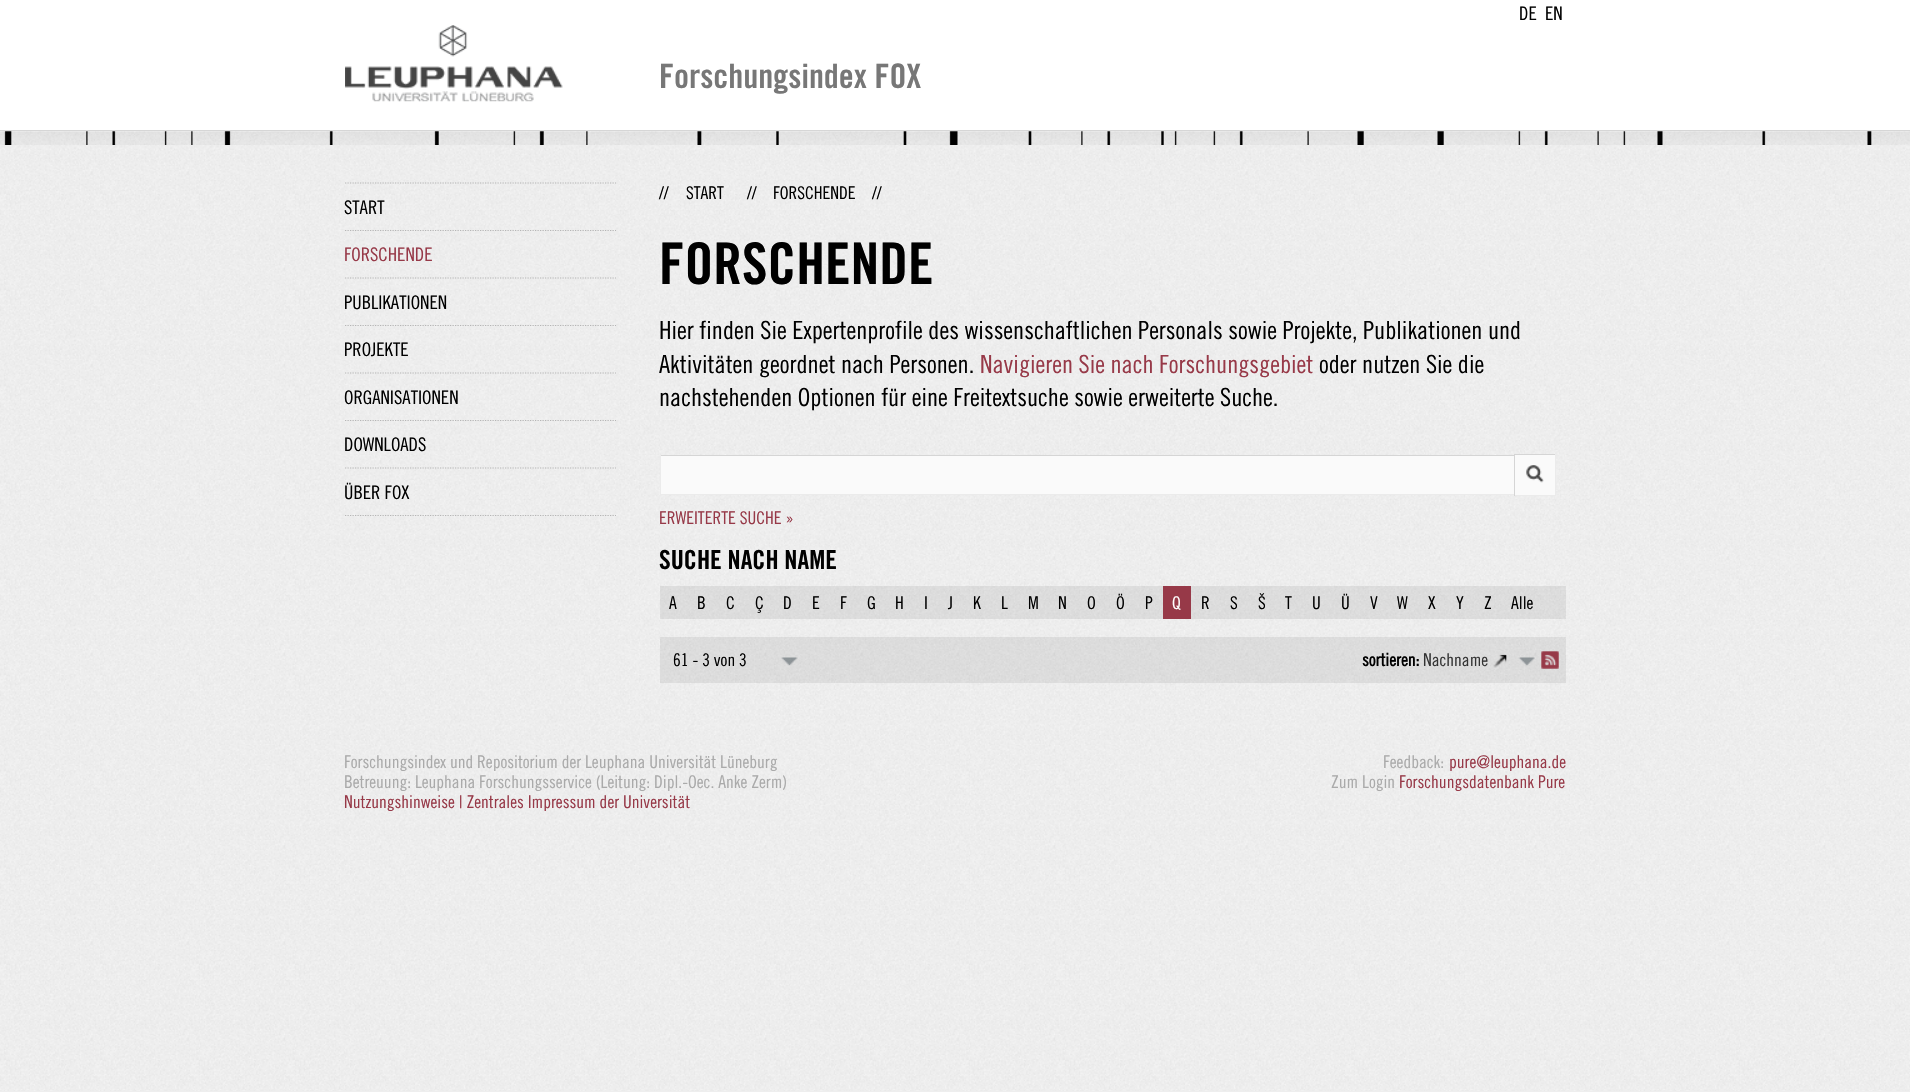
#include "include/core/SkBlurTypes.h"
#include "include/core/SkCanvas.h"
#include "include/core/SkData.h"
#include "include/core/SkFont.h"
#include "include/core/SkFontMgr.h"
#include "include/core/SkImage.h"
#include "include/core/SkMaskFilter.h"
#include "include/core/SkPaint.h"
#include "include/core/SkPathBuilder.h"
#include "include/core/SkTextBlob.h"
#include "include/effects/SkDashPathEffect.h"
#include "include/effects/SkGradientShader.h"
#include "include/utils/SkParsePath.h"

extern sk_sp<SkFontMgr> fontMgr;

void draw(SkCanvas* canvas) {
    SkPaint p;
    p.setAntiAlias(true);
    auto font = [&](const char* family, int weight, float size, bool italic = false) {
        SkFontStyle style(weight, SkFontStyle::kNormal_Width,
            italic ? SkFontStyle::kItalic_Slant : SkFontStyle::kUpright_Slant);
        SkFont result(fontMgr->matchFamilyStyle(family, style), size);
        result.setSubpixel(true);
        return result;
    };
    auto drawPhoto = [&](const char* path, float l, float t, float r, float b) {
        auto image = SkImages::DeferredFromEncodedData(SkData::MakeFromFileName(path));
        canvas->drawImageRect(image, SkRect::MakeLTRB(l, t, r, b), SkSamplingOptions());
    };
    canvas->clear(0xFFEEEEEE);
    drawPhoto("media/1.png", 0, 145, 1910, 1091);
    p.setColor(0xFFFFFFFF);
    canvas->drawRect(SkRect::MakeLTRB(0, 0, 1910, 132), p);
    p.setColor(0xFFD6D6D6);
    canvas->drawRect(SkRect::MakeLTRB(0, 130, 1910, 131), p);
    auto font1 = font("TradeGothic", 400, 18.75f);
    p.setColor(0xFF000000);
    canvas->drawString("DE", 1519, 20, font1, p);
    canvas->drawString("EN", 1545, 20, font1, p);
    drawPhoto("media/2.png", 345, 25, 563, 102);
    auto font2 = font("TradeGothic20", 700, 33.75f);
    p.setColor(0xFF777777);
    canvas->drawString("Forschungsindex FOX", 659, 88, font2, p);
    drawPhoto("media/3.png", 0, 131, 1910, 145);
    p.setStyle(SkPaint::kStroke_Style);
    p.setStrokeWidth(1.2f);
    p.setColor(0xFFB5B5B5);
    p.setPathEffect(SkDashPathEffect::Make({{1.25f, 1.25f}}, 0));
    canvas->drawPath(SkPathBuilder().moveTo(345, 515.5f).lineTo(616, 515.5f).detach(), p);
    p.setPathEffect(nullptr);
    p.setPathEffect(SkDashPathEffect::Make({{1.25f, 1.25f}}, 0));
    canvas->drawPath(SkPathBuilder().moveTo(345, 183).lineTo(616, 183).detach(), p);
    p.setPathEffect(nullptr);
    p.setStyle(SkPaint::kFill_Style);
    p.setColor(0xFF000000);
    canvas->drawString("START", 344, 214, font1, p);
    p.setStyle(SkPaint::kStroke_Style);
    p.setColor(0xFFB5B5B5);
    p.setPathEffect(SkDashPathEffect::Make({{1.25f, 1.25f}}, 0));
    canvas->drawPath(SkPathBuilder().moveTo(345, 230.5f).lineTo(616, 230.5f).detach(), p);
    p.setPathEffect(nullptr);
    p.setStyle(SkPaint::kFill_Style);
    p.setColor(0xFF973948);
    canvas->drawString("FORSCHENDE", 344, 261, font1, p);
    p.setStyle(SkPaint::kStroke_Style);
    p.setColor(0xFFB5B5B5);
    p.setPathEffect(SkDashPathEffect::Make({{1.25f, 1.25f}}, 0));
    canvas->drawPath(SkPathBuilder().moveTo(345, 278).lineTo(616, 278).detach(), p);
    p.setPathEffect(nullptr);
    p.setStyle(SkPaint::kFill_Style);
    p.setColor(0xFF000000);
    canvas->drawString("PUBLIKATIONEN", 344, 309, font1, p);
    p.setStyle(SkPaint::kStroke_Style);
    p.setColor(0xFFB5B5B5);
    p.setPathEffect(SkDashPathEffect::Make({{1.25f, 1.25f}}, 0));
    canvas->drawPath(SkPathBuilder().moveTo(345, 325.5f).lineTo(616, 325.5f).detach(), p);
    p.setPathEffect(nullptr);
    p.setStyle(SkPaint::kFill_Style);
    p.setColor(0xFF000000);
    canvas->drawString("PROJEKTE", 344, 356, font1, p);
    p.setStyle(SkPaint::kStroke_Style);
    p.setColor(0xFFB5B5B5);
    p.setPathEffect(SkDashPathEffect::Make({{1.25f, 1.25f}}, 0));
    canvas->drawPath(SkPathBuilder().moveTo(345, 373).lineTo(616, 373).detach(), p);
    p.setPathEffect(nullptr);
    p.setStyle(SkPaint::kFill_Style);
    p.setColor(0xFF000000);
    canvas->drawString("ORGANISATIONEN", 344, 404, font1, p);
    p.setStyle(SkPaint::kStroke_Style);
    p.setColor(0xFFB5B5B5);
    p.setPathEffect(SkDashPathEffect::Make({{1.25f, 1.25f}}, 0));
    canvas->drawPath(SkPathBuilder().moveTo(345, 420.5f).lineTo(616, 420.5f).detach(), p);
    p.setPathEffect(nullptr);
    p.setStyle(SkPaint::kFill_Style);
    p.setColor(0xFF000000);
    canvas->drawString("DOWNLOADS", 344, 451, font1, p);
    p.setStyle(SkPaint::kStroke_Style);
    p.setColor(0xFFB5B5B5);
    p.setPathEffect(SkDashPathEffect::Make({{1.25f, 1.25f}}, 0));
    canvas->drawPath(SkPathBuilder().moveTo(345, 468).lineTo(616, 468).detach(), p);
    p.setPathEffect(nullptr);
    p.setStyle(SkPaint::kFill_Style);
    p.setColor(0xFF000000);
    canvas->drawString("ÜBER FOX", 344, 499, font1, p);
    auto font3 = font("TradeGothic", 400, 17.5f);
    {
        const struct { const char* s; float x, y; } items[] = {
            {"//", 659, 199},
            {"START", 686, 199},
            {"//", 747, 199},
            {"FORSCHENDE", 773, 199},
            {"//", 872, 199},
        };
        for (auto [s, x, y] : items) {
            canvas->drawString(s, x, y, font3, p);
        }
    }
    auto font4 = font("TradeGothic20", 700, 57.5f);
    canvas->drawString("FORSCHENDE", 659, 284, font4, p);
    auto font5 = font("TradeGothic", 400, 25);
    canvas->drawString("Hier finden Sie Expertenprofile des wissenschaftlichen Personals sowie Projekte, Publikationen und", 659, 339, font5, p);
    canvas->drawString("Aktivitäten geordnet nach Personen.", 659, 373, font5, p);
    p.setColor(0xFF973948);
    canvas->drawString("Navigieren Sie nach Forschungsgebiet", 980, 373, font5, p);
    p.setColor(0xFF000000);
    canvas->drawString("oder nutzen Sie die", 1319, 373, font5, p);
    canvas->drawString("nachstehenden Optionen für eine Freitextsuche sowie erweiterte Suche.", 659, 406, font5, p);
    {
        const struct { float l, t, r, b; SkColor color; } items[] = {
            {661, 456, 1514, 494, 0xFFFAFAFA},
            {660, 455, 1519, 456, 0xFFD5D5D5},
            {660, 494, 1519, 495, 0xFFEBEBEB},
            {660, 455, 661, 495, 0xFFEBEBEB},
            {1515, 455, 1555, 495, 0xFFFAFAFA},
            {1514, 454, 1556, 455, 0xFFD5D5D5},
            {1555, 454, 1556, 496, 0xFFEBEBEB},
            {1514, 495, 1556, 496, 0xFFEBEBEB},
            {1514, 454, 1515, 496, 0xFFD5D5D5},
        };
        for (auto [l, t, r, b, color] : items) {
            p.setColor(color);
            canvas->drawRect(SkRect::MakeLTRB(l, t, r, b), p);
        }
    }
    drawPhoto("media/4.png", 1526, 465, 1544, 483);
    p.setColor(0xFF973948);
    canvas->drawString("ERWEITERTE SUCHE »", 659, 524, font3, p);
    auto font6 = font("TradeGothic20", 700, 26.25f);
    p.setColor(0xFF000000);
    canvas->drawString("SUCHE NACH NAME", 659, 569, font6, p);
    p.setColor(0x12000000);
    canvas->drawRect(SkRect::MakeLTRB(660, 586, 1566, 619), p);
    p.setColor(0xFF000000);
    {
        const struct { const char* s; float x, y; } items[] = {
            {"A", 669, 609},
            {"B", 697, 609},
            {"C", 726, 609},
            {"Ç", 755, 609},
            {"D", 783, 609},
            {"E", 812, 609},
            {"F", 840, 609},
            {"G", 867, 609},
            {"H", 895, 609},
            {"I", 924, 609},
            {"J", 948, 609},
            {"K", 973, 609},
            {"L", 1001, 609},
            {"M", 1028, 609},
            {"N", 1058, 609},
            {"O", 1087, 609},
            {"Ö", 1116, 609},
            {"P", 1145, 609},
        };
        for (auto [s, x, y] : items) {
            canvas->drawString(s, x, y, font3, p);
        }
    }
    p.setColor(0xFF973948);
    canvas->drawRect(SkRect::MakeLTRB(1163, 586, 1191, 619), p);
    p.setColor(0xFFFFFFFF);
    canvas->drawString("Q", 1172, 609, font3, p);
    p.setColor(0xFF000000);
    {
        const struct { const char* s; float x, y; } items[] = {
            {"R", 1201, 609},
            {"S", 1230, 609},
            {"Š", 1258, 609},
            {"T", 1285, 609},
            {"U", 1312, 609},
            {"Ü", 1341, 609},
            {"V", 1370, 609},
            {"W", 1397, 609},
            {"X", 1428, 609},
            {"Y", 1456, 609},
            {"Z", 1484, 609},
            {"Alle", 1511, 609},
        };
        for (auto [s, x, y] : items) {
            canvas->drawString(s, x, y, font3, p);
        }
    }
    p.setColor(0x12000000);
    canvas->drawRect(SkRect::MakeLTRB(660, 637, 1566, 683), p);
    drawPhoto("media/5.png", 781, 657, 798, 666);
    p.setColor(0xFF000000);
    canvas->drawString("61 - 3 von 3", 673, 666, font3, p);
    drawPhoto("media/6.png", 1518, 657, 1535, 666);
    auto font7 = font("TradeGothic", 700, 17.5f);
    canvas->drawString("sortieren:", 1362, 666, font7, p);
    p.setColor(0xFF333333);
    canvas->drawString("Nachname", 1423, 666, font3, p);
    drawPhoto("media/7.png", 1493, 654, 1507, 668);
    drawPhoto("media/8.png", 1541, 651, 1559, 669);
    p.setColor(0xFFAAAAAA);
    canvas->drawString("Forschungsindex und Repositorium der Leuphana Universität Lüneburg", 344, 768, font3, p);
    canvas->drawString("Betreuung: Leuphana Forschungsservice (Leitung: Dipl.-Oec. Anke Zerm)", 344, 788, font3, p);
    p.setColor(0xFF973948);
    canvas->drawString("Nutzungshinweise | Zentrales Impressum der Universität", 344, 808, font3, p);
    p.setColor(0xFFAAAAAA);
    canvas->drawString("Feedback:", 1383, 768, font3, p);
    p.setColor(0xFF973948);
    canvas->drawString("pure@leuphana.de", 1449, 768, font3, p);
    p.setColor(0xFFAAAAAA);
    canvas->drawString("Zum Login", 1331, 788, font3, p);
    p.setColor(0xFF973948);
    canvas->drawString("Forschungsdatenbank Pure", 1399, 788, font3, p);
}
